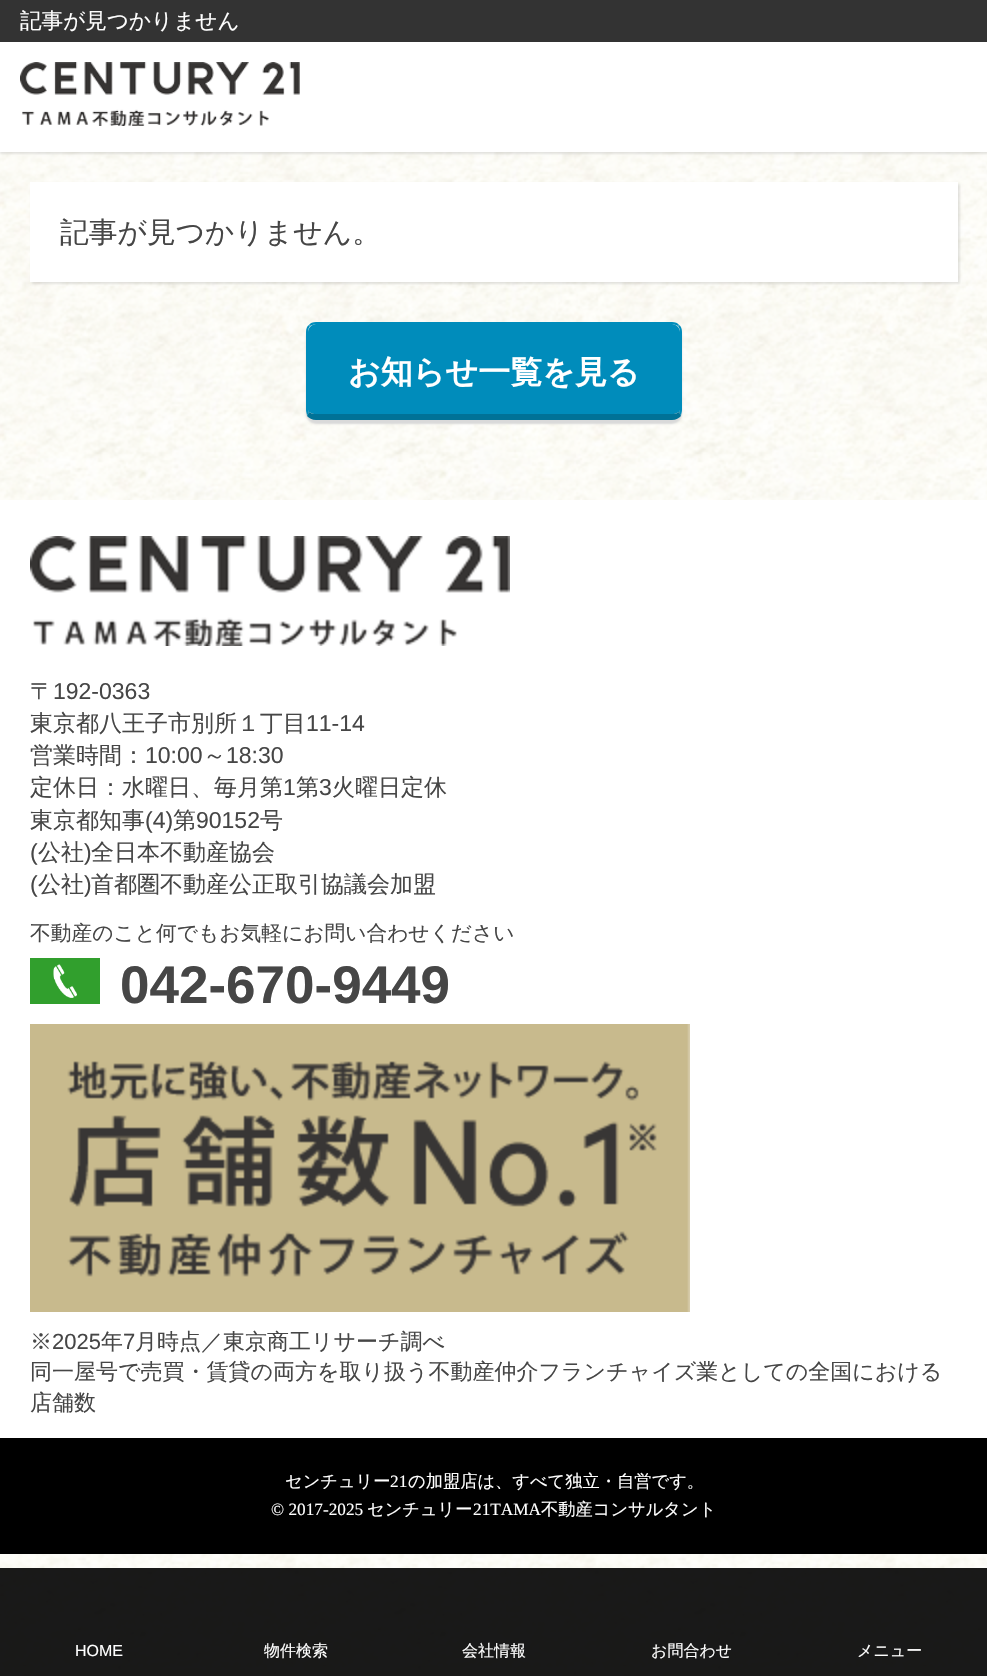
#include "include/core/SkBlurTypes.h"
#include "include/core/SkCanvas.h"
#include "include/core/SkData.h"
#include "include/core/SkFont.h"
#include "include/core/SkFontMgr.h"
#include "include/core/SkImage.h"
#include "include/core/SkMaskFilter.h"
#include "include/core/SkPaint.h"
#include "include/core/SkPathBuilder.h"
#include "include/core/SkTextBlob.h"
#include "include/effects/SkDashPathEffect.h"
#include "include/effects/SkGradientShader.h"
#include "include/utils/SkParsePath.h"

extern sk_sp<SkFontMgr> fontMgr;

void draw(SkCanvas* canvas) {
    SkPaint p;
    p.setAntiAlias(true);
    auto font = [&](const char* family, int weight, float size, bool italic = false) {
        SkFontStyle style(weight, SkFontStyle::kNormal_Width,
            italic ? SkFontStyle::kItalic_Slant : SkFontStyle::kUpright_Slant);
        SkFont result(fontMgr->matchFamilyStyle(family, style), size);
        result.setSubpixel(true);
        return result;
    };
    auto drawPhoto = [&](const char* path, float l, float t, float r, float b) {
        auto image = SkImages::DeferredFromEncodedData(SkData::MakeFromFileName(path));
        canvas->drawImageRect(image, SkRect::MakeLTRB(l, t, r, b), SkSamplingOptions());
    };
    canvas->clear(0xFFFFFFFF);
    drawPhoto("media/1.png", 0, 152, 987, 1676);
    p.setColor(0x1A000000);
    p.setMaskFilter(SkMaskFilter::MakeBlur(kNormal_SkBlurStyle, 1));
    canvas->drawRect(SkRect::MakeLTRB(0, 2, 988, 154), p);
    p.setMaskFilter(nullptr);
    p.setColor(0xFFFFFFFF);
    canvas->drawRect(SkRect::MakeLTRB(0, 42, 987, 152), p);
    p.setColor(0xFF333333);
    canvas->drawRect(SkRect::MakeLTRB(0, 0, 987, 42), p);
    auto font1 = font("WenQuanYi Zen Hei", 500, 21.6f);
    p.setColor(0xFFFFFFFF);
    canvas->drawString("記事が見つかりません", 20, 28, font1, p);
    drawPhoto("media/2.png", 20, 62, 300, 126);
    p.setColor(0x1A000000);
    p.setMaskFilter(SkMaskFilter::MakeBlur(kNormal_SkBlurStyle, 1));
    canvas->drawRect(SkRect::MakeLTRB(32, 184, 960, 284), p);
    p.setMaskFilter(nullptr);
    p.setColor(0xFFFFFFFF);
    canvas->drawRect(SkRect::MakeLTRB(30, 182, 958, 282), p);
    auto font2 = font("WenQuanYi Zen Hei", 500, 28.75f);
    p.setColor(0xFF464646);
    canvas->drawString("記事が見つかりません。", 60, 242, font2, p);
    p.setColor(0xFFD9D9D9);
    p.setMaskFilter(SkMaskFilter::MakeBlur(kNormal_SkBlurStyle, 1));
    canvas->drawRoundRect(SkRect::MakeLTRB(306, 326, 682, 424), 10, 10, p);
    p.setMaskFilter(nullptr);
    p.setColor(0xFF008CBB);
    canvas->drawPath(SkPathBuilder().moveTo(316, 324).lineTo(672, 324).cubicTo(676, 324, 680, 328, 680, 332).lineTo(680, 410).cubicTo(680, 412, 676, 414, 672, 414).lineTo(316, 414).cubicTo(312, 414, 308, 412, 308, 410).lineTo(308, 332).cubicTo(308, 328, 312, 324, 316, 324).close().detach(), p);
    canvas->drawPath(SkPathBuilder().moveTo(316, 322).cubicTo(313, 322, 310, 323, 309, 325).lineTo(310, 326).cubicTo(312, 325, 314, 324, 316, 324).lineTo(672, 324).cubicTo(674, 324, 676, 325, 678, 326).lineTo(679, 325).cubicTo(678, 323, 675, 322, 672, 322).close().detach(), p);
    canvas->drawPath(SkPathBuilder().moveTo(682, 410).lineTo(682, 332).cubicTo(682, 329, 681, 326, 679, 325).lineTo(678, 326).cubicTo(679, 328, 680, 329, 680, 331).lineTo(680, 410).lineTo(679, 412).lineTo(681, 416).cubicTo(681, 414, 682, 412, 682, 410).close().detach(), p);
    p.setColor(0xFF007297);
    canvas->drawPath(SkPathBuilder().moveTo(316, 420).lineTo(672, 420).cubicTo(676, 420, 679, 418, 681, 416).lineTo(679, 412).cubicTo(678, 413, 675, 414, 672, 414).lineTo(316, 414).cubicTo(313, 414, 310, 413, 309, 412).lineTo(307, 416).cubicTo(309, 418, 312, 420, 316, 420).close().detach(), p);
    p.setColor(0xFF008CBB);
    canvas->drawPath(SkPathBuilder().moveTo(306, 332).lineTo(306, 410).cubicTo(306, 412, 307, 414, 307, 416).lineTo(309, 412).lineTo(308, 410).lineTo(308, 331).cubicTo(308, 329, 309, 328, 310, 326).lineTo(309, 325).cubicTo(307, 326, 306, 329, 306, 332).close().detach(), p);
    auto font3 = font("WenQuanYi Zen Hei", 700, 32);
    p.setColor(0xFFFFFFFF);
    canvas->drawString("お知らせ一覧を見る", 348, 383, font3, p);
    canvas->drawRect(SkRect::MakeLTRB(0, 500, 987, 1438), p);
    drawPhoto("media/3.png", 30, 536, 510, 646);
    auto font4 = font("WenQuanYi Zen Hei", 500, 23);
    p.setColor(0xFF464646);
    canvas->drawString("〒", 30, 699, font4, p);
    auto font5 = font("Liberation Sans", 400, 23);
    canvas->drawString("192-0363", 53, 699, font5, p);
    canvas->drawString("東京都八王子市別所１丁目", 30, 731, font4, p);
    canvas->drawString("11-14", 306, 731, font5, p);
    canvas->drawString("営業時間：", 30, 763, font4, p);
    canvas->drawString("10:00", 145, 763, font5, p);
    canvas->drawString("～", 203, 763, font4, p);
    canvas->drawString("18:30", 226, 763, font5, p);
    canvas->drawString("定休日：水曜日、毎月第", 30, 795, font4, p);
    canvas->drawString("1", 283, 795, font5, p);
    canvas->drawString("第", 296, 795, font4, p);
    canvas->drawString("3", 319, 795, font5, p);
    canvas->drawString("火曜日定休", 332, 795, font4, p);
    canvas->drawString("東京都知事", 30, 828, font4, p);
    canvas->drawString("(4)", 145, 828, font5, p);
    canvas->drawString("第", 173, 828, font4, p);
    canvas->drawString("90152", 196, 828, font5, p);
    canvas->drawString("号", 260, 828, font4, p);
    canvas->drawString("(", 30, 860, font5, p);
    canvas->drawString("公社", 38, 860, font4, p);
    canvas->drawString(")", 84, 860, font5, p);
    canvas->drawString("全日本不動産協会", 91, 860, font4, p);
    canvas->drawString("(", 30, 892, font5, p);
    canvas->drawString("公社", 38, 892, font4, p);
    canvas->drawString(")", 84, 892, font5, p);
    canvas->drawString("首都圏不動産公正取引協議会加盟", 91, 892, font4, p);
    auto font6 = font("WenQuanYi Zen Hei", 500, 20.75f);
    canvas->drawString("不動産のこと何でもお気軽にお問い合わせください", 30, 940, font6, p);
    drawPhoto("media/4.png", 30, 958, 100, 1004);
    auto font7 = font("Liberation Sans", 700, 53);
    canvas->drawString("042-670-9449", 120, 1003, font7, p);
    drawPhoto("media/5.png", 30, 1024, 690, 1312);
    auto font8 = font("WenQuanYi Zen Hei", 500, 22);
    canvas->drawString("※", 30, 1349, font8, p);
    auto font9 = font("Liberation Sans", 400, 22);
    canvas->drawString("2025", 52, 1349, font9, p);
    canvas->drawString("年", 101, 1349, font8, p);
    canvas->drawString("7", 123, 1349, font9, p);
    {
        const struct { const char* s; float x, y; } items[] = {
            {"月時点／東京商工リサーチ調べ", 135, 1349},
            {"同一屋号で売買・賃貸の両方を取り扱う不動産仲介フランチャイズ業としての全国における", 30, 1379},
            {"店舗数", 30, 1410},
        };
        for (auto [s, x, y] : items) {
            canvas->drawString(s, x, y, font8, p);
        }
    }
    p.setColor(0xFF000000);
    canvas->drawRect(SkRect::MakeLTRB(0, 1438, 987, 1554), p);
    auto font10 = font("WenQuanYi Zen Hei", 500, 17.25f);
    p.setColor(0xFFFFFFFF);
    canvas->drawString("センチュリー", 285, 1487, font10, p);
    auto font11 = font("Liberation Serif", 400, 17.25f);
    canvas->drawString("21", 390, 1487, font11, p);
    canvas->drawString("の加盟店は、すべて独立・自営です。", 408, 1487, font10, p);
    canvas->drawString("© 2017-2025", 271, 1515, font11, p);
    canvas->drawString("センチュリー", 367, 1515, font10, p);
    canvas->drawString("21TAMA", 473, 1515, font11, p);
    canvas->drawString("不動産コンサルタント", 541, 1515, font10, p);
    p.setColor(0xE6000000);
    canvas->drawRect(SkRect::MakeLTRB(0, 1568, 987, 1676), p);
    auto font12 = font("Liberation Sans", 400, 16);
    p.setColor(0xFFFFFFFF);
    canvas->drawString("HOME", 75, 1656, font12, p);
    auto font13 = font("WenQuanYi Zen Hei", 500, 16);
    {
        const struct { const char* s; float x, y; } items[] = {
            {"物件検索", 264, 1656},
            {"会社情報", 462, 1656},
            {"お問合わせ", 651, 1656},
            {"メニュー", 857, 1656},
        };
        for (auto [s, x, y] : items) {
            canvas->drawString(s, x, y, font13, p);
        }
    }
}
